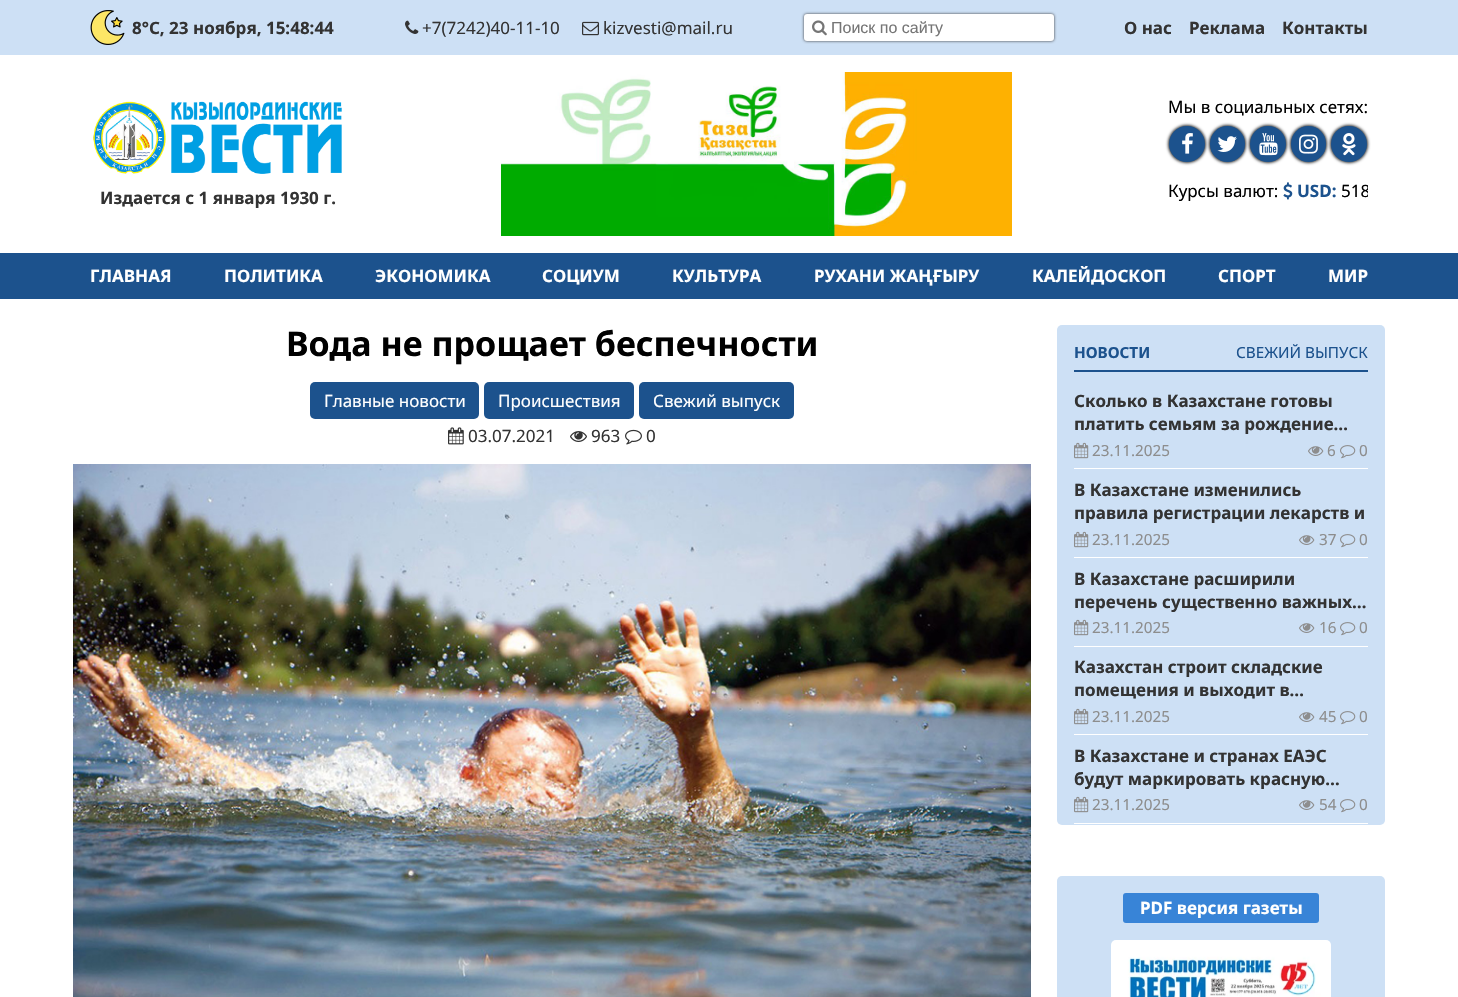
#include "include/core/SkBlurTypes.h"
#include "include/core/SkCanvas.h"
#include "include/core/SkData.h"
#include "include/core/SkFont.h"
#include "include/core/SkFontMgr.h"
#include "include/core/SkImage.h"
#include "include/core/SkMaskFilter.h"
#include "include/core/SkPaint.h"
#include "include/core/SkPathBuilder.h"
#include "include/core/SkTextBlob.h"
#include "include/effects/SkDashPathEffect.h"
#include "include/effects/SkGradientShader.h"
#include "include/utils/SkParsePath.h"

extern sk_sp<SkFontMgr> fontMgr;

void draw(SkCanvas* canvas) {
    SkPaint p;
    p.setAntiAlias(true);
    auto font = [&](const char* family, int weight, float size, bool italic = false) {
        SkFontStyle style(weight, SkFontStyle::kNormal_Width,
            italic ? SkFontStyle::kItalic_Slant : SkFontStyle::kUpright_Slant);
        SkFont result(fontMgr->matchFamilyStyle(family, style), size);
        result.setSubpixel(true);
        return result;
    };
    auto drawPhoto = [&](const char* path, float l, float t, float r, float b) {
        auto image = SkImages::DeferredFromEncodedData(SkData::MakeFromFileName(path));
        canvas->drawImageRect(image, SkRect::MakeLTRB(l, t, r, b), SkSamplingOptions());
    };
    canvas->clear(0xFFFFFFFF);
    p.setColor(0xFFCDE0F5);
    canvas->drawRect(SkRect::MakeLTRB(0, 0, 1458, 55), p);
    drawPhoto("media/1.png", 90, 10, 125, 45);
    auto font1 = font("Noto Sans", 700, 17);
    p.setColor(0xFF333333);
    canvas->drawString("8°C, 23 ноября, 15:48:44", 132, 34, font1, p);
    drawPhoto("media/2.png", 405, 20, 419, 34);
    auto font2 = font("Noto Sans", 400, 17);
    canvas->drawString("+7(7242)40-11-10", 422, 34, font2, p);
    drawPhoto("media/3.png", 582, 21, 599, 36);
    canvas->drawString("kizvesti@mail.ru", 603, 34, font2, p);
    p.setMaskFilter(SkMaskFilter::MakeBlur(kNormal_SkBlurStyle, 1.5f));
    canvas->drawRoundRect(SkRect::MakeLTRB(804, 14, 1054, 41), 3, 3, p);
    p.setMaskFilter(nullptr);
    p.setColor(0xFFFFFFFF);
    canvas->drawRoundRect(SkRect::MakeLTRB(804, 14, 1054, 41), 3, 3, p);
    drawPhoto("media/4.png", 812, 20, 827, 36);
    auto font3 = font("Liberation Sans", 400, 16);
    p.setColor(0xFF757575);
    canvas->drawString("Поиск по сайту", 831, 33, font3, p);
    p.setColor(0xFF333333);
    {
        const struct { const char* s; float x, y; } items[] = {
            {"О нас", 1124, 34},
            {"Реклама", 1189, 34},
            {"Контакты", 1282, 34},
        };
        for (auto [s, x, y] : items) {
            canvas->drawString(s, x, y, font1, p);
        }
    }
    drawPhoto("media/5.png", 93, 101, 342, 174);
    canvas->drawString("Издается с 1 января 1930 г.", 100, 204, font1, p);
    drawPhoto("media/6.png", 501, 72, 1012, 236);
    p.setColor(0xFF000000);
    canvas->drawString("Мы в социальных сетях:", 1168, 113, font2, p);
    p.setColor(0xFF333333);
    p.setMaskFilter(SkMaskFilter::MakeBlur(kNormal_SkBlurStyle, 1.5f));
    canvas->drawRoundRect(SkRect::MakeLTRB(1168, 125, 1206, 163), 19, 19, p);
    p.setMaskFilter(nullptr);
    p.setColor(0xFF1C528D);
    canvas->drawCircle(1187, 144, 18, p);
    drawPhoto("media/7.png", 1182, 133, 1193, 154);
    p.setColor(0xFF333333);
    p.setMaskFilter(SkMaskFilter::MakeBlur(kNormal_SkBlurStyle, 1.5f));
    canvas->drawRoundRect(SkRect::MakeLTRB(1209, 125, 1246, 163), 18.5f, 18.5f, p);
    p.setMaskFilter(nullptr);
    p.setColor(0xFF1C528D);
    canvas->drawRoundRect(SkRect::MakeLTRB(1210, 126, 1245, 162), 17.5f, 17.5f, p);
    drawPhoto("media/8.png", 1217, 136, 1237, 152);
    p.setColor(0xFF333333);
    p.setMaskFilter(SkMaskFilter::MakeBlur(kNormal_SkBlurStyle, 1.5f));
    canvas->drawRoundRect(SkRect::MakeLTRB(1249, 125, 1287, 163), 19, 19, p);
    p.setMaskFilter(nullptr);
    p.setColor(0xFF1C528D);
    canvas->drawCircle(1268, 144, 18, p);
    drawPhoto("media/9.png", 1259, 133, 1278, 156);
    p.setColor(0xFF333333);
    p.setMaskFilter(SkMaskFilter::MakeBlur(kNormal_SkBlurStyle, 1.5f));
    canvas->drawRoundRect(SkRect::MakeLTRB(1290, 125, 1327, 163), 18.5f, 18.5f, p);
    p.setMaskFilter(nullptr);
    p.setColor(0xFF1C528D);
    canvas->drawRoundRect(SkRect::MakeLTRB(1291, 126, 1326, 162), 17.5f, 17.5f, p);
    drawPhoto("media/10.png", 1299, 134, 1318, 154);
    p.setColor(0xFF333333);
    p.setMaskFilter(SkMaskFilter::MakeBlur(kNormal_SkBlurStyle, 1.5f));
    canvas->drawRoundRect(SkRect::MakeLTRB(1330, 125, 1368, 163), 19, 19, p);
    p.setMaskFilter(nullptr);
    p.setColor(0xFF1C528D);
    canvas->drawCircle(1349, 144, 18, p);
    drawPhoto("media/11.png", 1342, 133, 1356, 156);
    p.setColor(0xFF000000);
    canvas->drawString("Курсы валют:", 1168, 197, font2, p);
    drawPhoto("media/12.png", 1283, 182, 1293, 200);
    p.setColor(0xFF1C528D);
    canvas->drawString("USD:", 1297, 197, font1, p);
    canvas->save();
    canvas->clipRect(SkRect::MakeLTRB(1168, 162, 1368, 204));
    p.setColor(0xFF000000);
    canvas->drawString("518", 1341, 197, font2, p);
    canvas->restore();
    p.setColor(0xFF1C528D);
    canvas->drawRect(SkRect::MakeLTRB(0, 253, 1458, 299), p);
    p.setColor(0xFFFFFFFF);
    {
        const struct { const char* s; float x, y; } items[] = {
            {"ГЛАВНАЯ", 90, 282},
            {"ПОЛИТИКА", 224, 282},
            {"ЭКОНОМИКА", 375, 282},
            {"СОЦИУМ", 542, 282},
            {"КУЛЬТУРА", 672, 282},
            {"РУХАНИ ЖАҢҒЫРУ", 814, 282},
            {"КАЛЕЙДОСКОП", 1032, 282},
            {"СПОРТ", 1218, 282},
            {"МИР", 1328, 282},
        };
        for (auto [s, x, y] : items) {
            canvas->drawString(s, x, y, font1, p);
        }
    }
    auto font4 = font("Noto Sans", 700, 34);
    p.setColor(0xFF000000);
    canvas->drawString("Вода не прощает беспечности", 286, 356, font4, p);
    p.setColor(0xFF1C528D);
    canvas->drawRoundRect(SkRect::MakeLTRB(310, 382, 479, 419), 5, 5, p);
    p.setColor(0xFFFFFFFF);
    canvas->drawString("Главные новости", 324, 407, font2, p);
    p.setColor(0xFF1C528D);
    canvas->drawRoundRect(SkRect::MakeLTRB(484, 382, 634, 419), 5, 5, p);
    p.setColor(0xFFFFFFFF);
    canvas->drawString("Происшествия", 498, 407, font2, p);
    p.setColor(0xFF1C528D);
    canvas->drawRoundRect(SkRect::MakeLTRB(639, 382, 794, 419), 5, 5, p);
    p.setColor(0xFFFFFFFF);
    canvas->drawString("Свежий выпуск", 653, 407, font2, p);
    drawPhoto("media/13.png", 448, 427, 464, 445);
    p.setColor(0xFF333333);
    canvas->drawString("03.07.2021", 468, 442, font2, p);
    drawPhoto("media/14.png", 570, 431, 587, 442);
    canvas->drawString("963", 591, 442, font2, p);
    drawPhoto("media/15.png", 625, 429, 642, 445);
    canvas->drawString("0", 646, 442, font2, p);
    drawPhoto("media/16.png", 73, 464, 1031, 997);
    p.setColor(0xFFCDE0F5);
    canvas->drawRoundRect(SkRect::MakeLTRB(1057, 325, 1385, 825), 5, 5, p);
    p.setColor(0xFF1C528D);
    canvas->drawRect(SkRect::MakeLTRB(1074, 370, 1368, 372), p);
    auto font5 = font("Noto Sans", 700, 15.25f);
    canvas->drawString("НОВОСТИ", 1074, 358, font5, p);
    auto font6 = font("Noto Sans", 400, 15.25f);
    canvas->drawString("СВЕЖИЙ ВЫПУСК", 1236, 358, font6, p);
    p.setColor(0xFFFFFFFF);
    canvas->drawRect(SkRect::MakeLTRB(1074, 468, 1368, 469), p);
    p.setColor(0xFF333333);
    canvas->drawString("Сколько в Казахстане готовы", 1074, 407, font1, p);
    canvas->drawString("платить семьям за рождение…", 1074, 430, font1, p);
    drawPhoto("media/17.png", 1074, 442, 1089, 459);
    p.setColor(0xFF8D8D8D);
    canvas->drawString("23.11.2025", 1092, 456, font6, p);
    drawPhoto("media/18.png", 1308, 446, 1324, 456);
    canvas->drawString("6", 1327, 456, font6, p);
    drawPhoto("media/19.png", 1340, 445, 1356, 459);
    canvas->drawString("0", 1359, 456, font6, p);
    p.setColor(0xFFFFFFFF);
    canvas->drawRect(SkRect::MakeLTRB(1074, 557, 1368, 558), p);
    p.setColor(0xFF333333);
    canvas->drawString("В Казахстане изменились", 1074, 496, font1, p);
    canvas->drawString("правила регистрации лекарств и", 1074, 519, font1, p);
    drawPhoto("media/17.png", 1074, 531, 1089, 548);
    p.setColor(0xFF8D8D8D);
    canvas->drawString("23.11.2025", 1092, 545, font6, p);
    drawPhoto("media/18.png", 1299, 535, 1315, 545);
    canvas->drawString("37", 1319, 545, font6, p);
    drawPhoto("media/19.png", 1340, 534, 1356, 548);
    canvas->drawString("0", 1359, 545, font6, p);
    p.setColor(0xFFFFFFFF);
    canvas->drawRect(SkRect::MakeLTRB(1074, 646, 1368, 647), p);
    p.setColor(0xFF333333);
    canvas->drawString("В Казахстане расширили", 1074, 585, font1, p);
    canvas->drawString("перечень существенно важных…", 1074, 608, font1, p);
    drawPhoto("media/17.png", 1074, 619, 1089, 636);
    p.setColor(0xFF8D8D8D);
    canvas->drawString("23.11.2025", 1092, 633, font6, p);
    drawPhoto("media/18.png", 1299, 623, 1315, 633);
    canvas->drawString("16", 1319, 633, font6, p);
    drawPhoto("media/19.png", 1340, 622, 1356, 636);
    canvas->drawString("0", 1359, 633, font6, p);
    p.setColor(0xFFFFFFFF);
    canvas->drawRect(SkRect::MakeLTRB(1074, 734, 1368, 735), p);
    p.setColor(0xFF333333);
    canvas->drawString("Казахстан строит складские", 1074, 673, font1, p);
    canvas->drawString("помещения и выходит в…", 1074, 696, font1, p);
    drawPhoto("media/17.png", 1074, 708, 1089, 725);
    p.setColor(0xFF8D8D8D);
    canvas->drawString("23.11.2025", 1092, 722, font6, p);
    drawPhoto("media/18.png", 1299, 712, 1315, 722);
    canvas->drawString("45", 1319, 722, font6, p);
    drawPhoto("media/19.png", 1340, 711, 1356, 725);
    canvas->drawString("0", 1359, 722, font6, p);
    p.setColor(0xFFFFFFFF);
    canvas->drawRect(SkRect::MakeLTRB(1074, 823, 1368, 824), p);
    p.setColor(0xFF333333);
    canvas->drawString("В Казахстане и странах ЕАЭС", 1074, 762, font1, p);
    canvas->drawString("будут маркировать красную…", 1074, 785, font1, p);
    drawPhoto("media/17.png", 1074, 796, 1089, 813);
    p.setColor(0xFF8D8D8D);
    canvas->drawString("23.11.2025", 1092, 810, font6, p);
    drawPhoto("media/18.png", 1299, 800, 1315, 810);
    canvas->drawString("54", 1319, 810, font6, p);
    drawPhoto("media/19.png", 1340, 799, 1356, 813);
    canvas->drawString("0", 1359, 810, font6, p);
    p.setColor(0xFFCDE0F5);
    canvas->drawRoundRect(SkRect::MakeLTRB(1057, 876, 1385, 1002), 5, 5, p);
    p.setColor(0xFF3884D7);
    canvas->drawRoundRect(SkRect::MakeLTRB(1123, 893, 1319, 923), 3, 3, p);
    p.setColor(0xFFFFFFFF);
    canvas->drawString("PDF версия газеты", 1140, 914, font1, p);
    drawPhoto("media/20.png", 1111, 940, 1331, 997);
}
